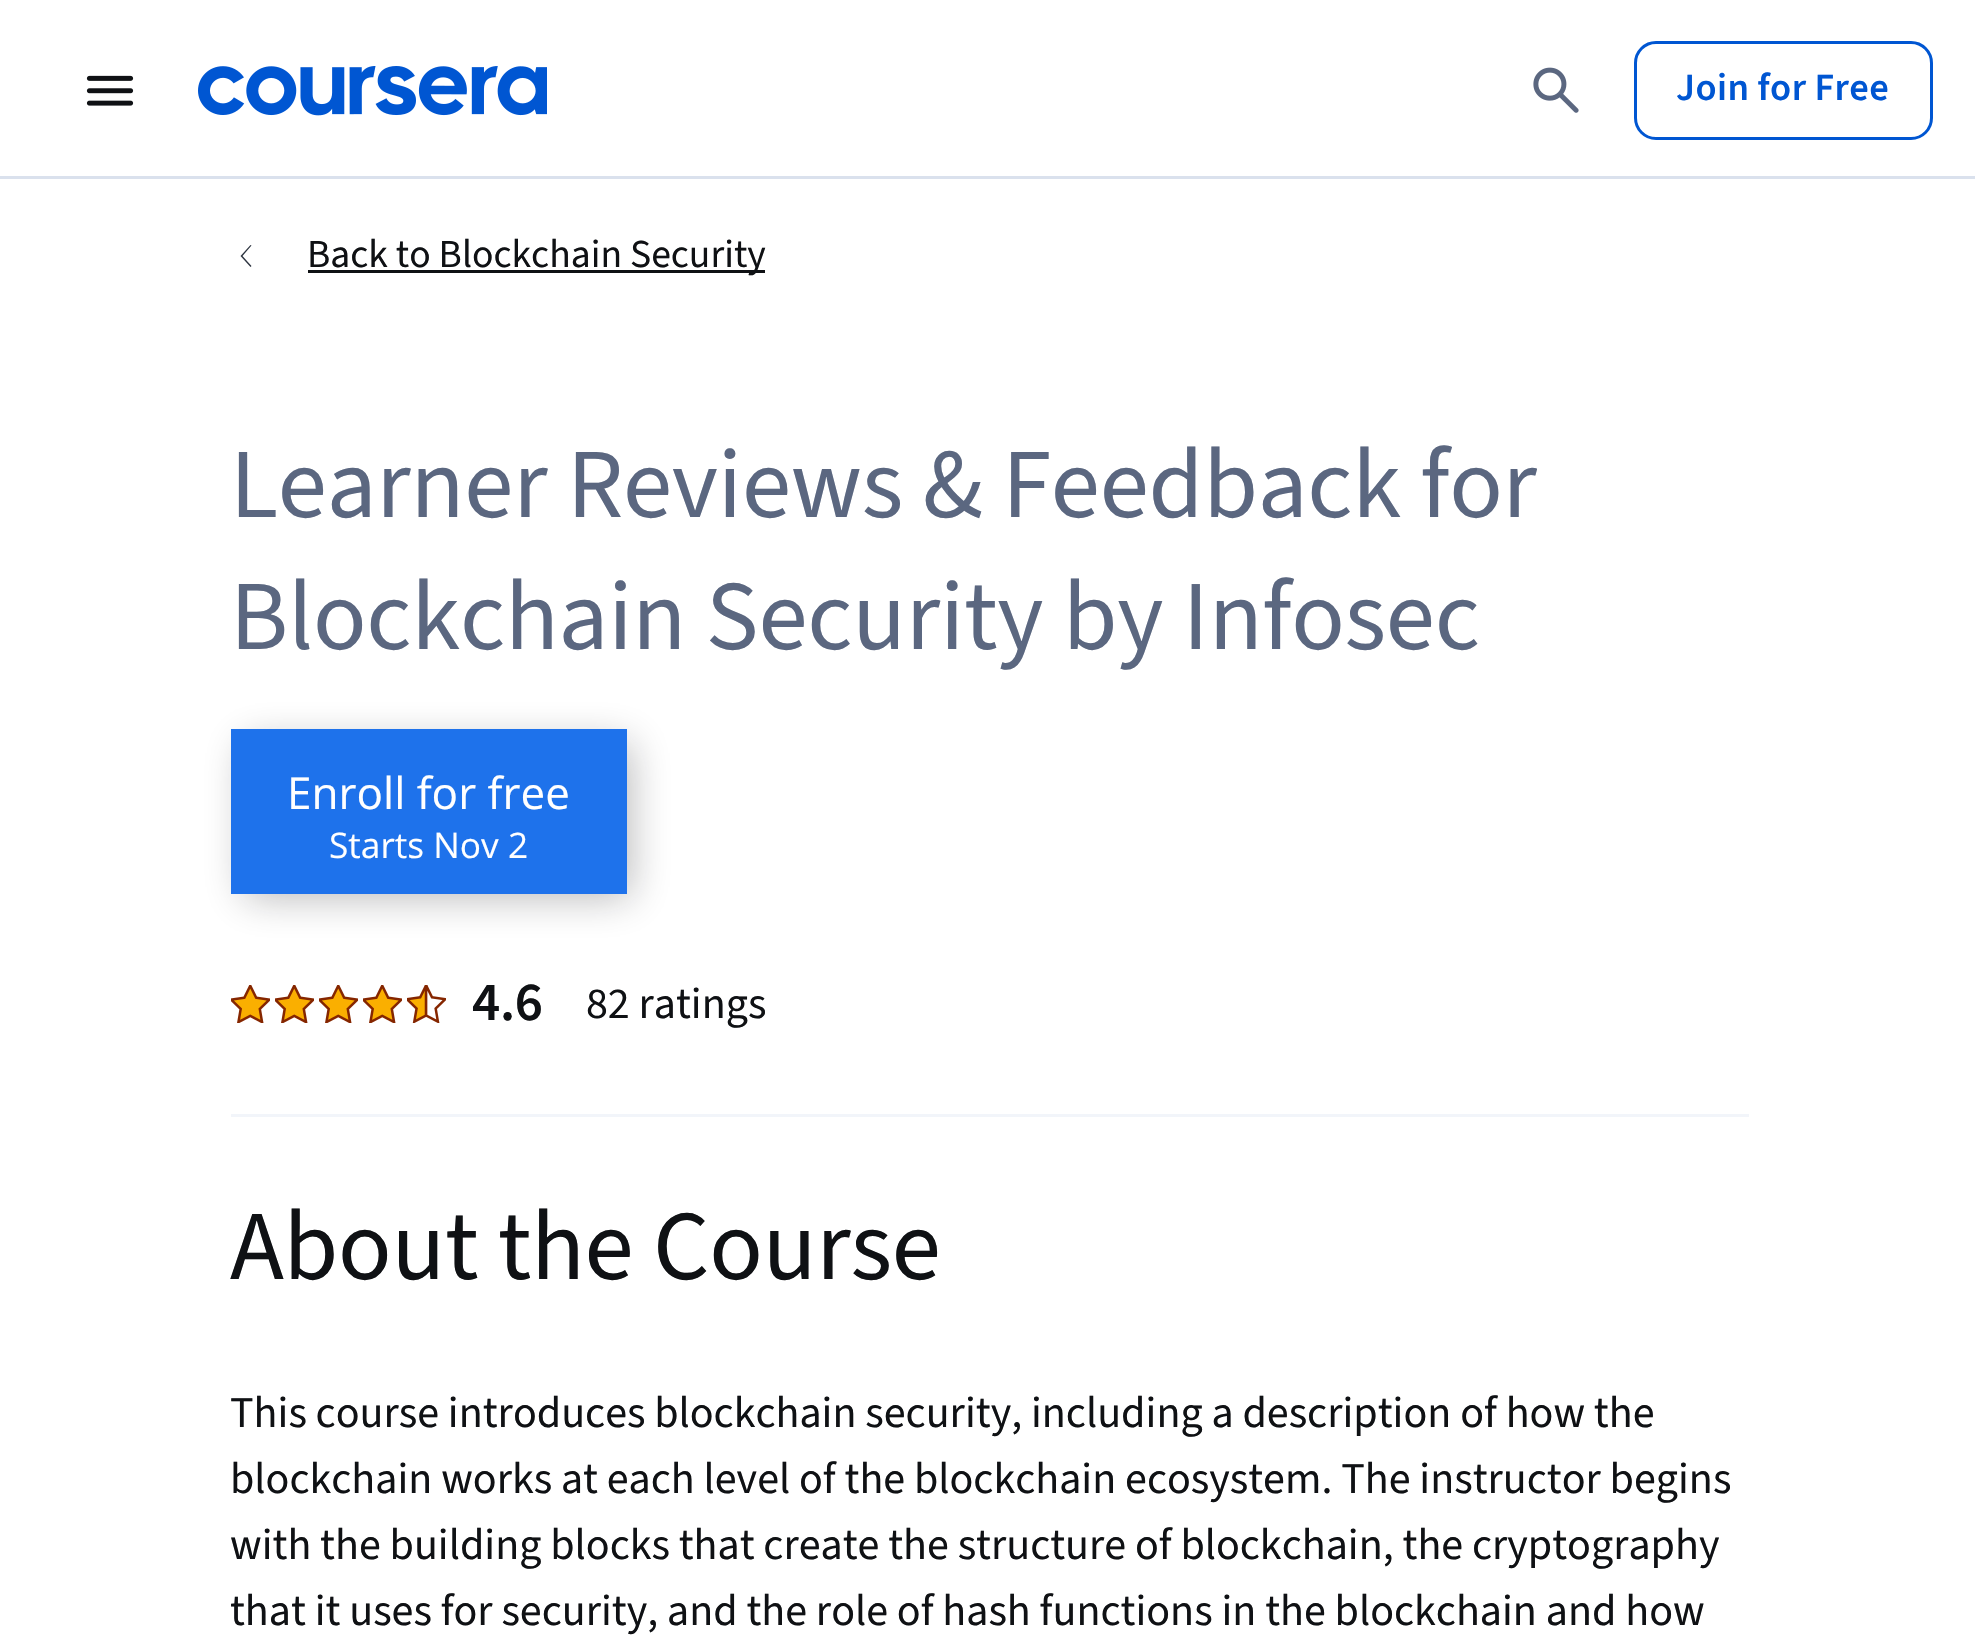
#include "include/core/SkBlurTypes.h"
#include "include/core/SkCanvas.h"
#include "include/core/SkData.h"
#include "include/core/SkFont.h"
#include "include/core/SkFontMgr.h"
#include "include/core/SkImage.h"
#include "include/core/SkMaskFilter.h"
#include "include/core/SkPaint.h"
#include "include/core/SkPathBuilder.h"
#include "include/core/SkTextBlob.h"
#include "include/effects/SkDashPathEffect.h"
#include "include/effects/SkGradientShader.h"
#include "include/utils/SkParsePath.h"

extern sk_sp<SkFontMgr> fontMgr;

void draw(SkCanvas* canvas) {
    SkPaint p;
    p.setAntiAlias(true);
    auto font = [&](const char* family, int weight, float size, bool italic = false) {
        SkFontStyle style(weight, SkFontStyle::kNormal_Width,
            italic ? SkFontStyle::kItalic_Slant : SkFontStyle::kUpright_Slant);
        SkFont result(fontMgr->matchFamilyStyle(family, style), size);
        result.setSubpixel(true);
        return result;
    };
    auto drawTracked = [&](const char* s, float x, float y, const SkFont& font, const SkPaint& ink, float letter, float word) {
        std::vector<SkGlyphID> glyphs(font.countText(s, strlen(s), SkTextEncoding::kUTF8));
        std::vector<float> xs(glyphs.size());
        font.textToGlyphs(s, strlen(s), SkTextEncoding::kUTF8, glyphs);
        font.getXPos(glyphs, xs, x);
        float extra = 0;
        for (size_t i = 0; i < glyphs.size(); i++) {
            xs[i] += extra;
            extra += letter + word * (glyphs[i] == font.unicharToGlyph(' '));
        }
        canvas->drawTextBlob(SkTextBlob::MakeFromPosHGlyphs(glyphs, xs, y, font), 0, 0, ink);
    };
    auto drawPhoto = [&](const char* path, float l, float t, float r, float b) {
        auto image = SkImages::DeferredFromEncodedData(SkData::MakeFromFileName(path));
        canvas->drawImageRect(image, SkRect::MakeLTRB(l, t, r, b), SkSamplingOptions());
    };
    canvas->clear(0xFFFFFFFF);
    p.setColor(0xFFDAE1ED);
    canvas->drawRect(SkRect::MakeLTRB(0, 176, 1975, 179), p);
    drawPhoto("media/1.png", 86, 75, 134, 106);
    drawPhoto("media/2.png", 198, 66, 547, 116);
    drawPhoto("media/3.png", 1533, 67, 1579, 113);
    p.setStyle(SkPaint::kStroke_Style);
    p.setStrokeWidth(3);
    p.setColor(0xFF0056D2);
    canvas->drawRoundRect(SkRect::MakeLTRB(1635.5f, 42.5f, 1931.5f, 138.5f), 20.5f, 20.5f, p);
    auto font1 = font("Source Sans 3", 600, 38.5f);
    p.setStyle(SkPaint::kFill_Style);
    drawTracked("Join for Free", 1676, 100, font1, p, 0.4f, 0);
    p.setColor(0xFFF2F5FA);
    canvas->drawRect(SkRect::MakeLTRB(231, 1114, 1749, 1117), p);
    p.setColor(0xFF2D3440);
    canvas->drawPath(SkPathBuilder().moveTo(240.5f, 256).lineTo(250.5f, 267).lineTo(251.5f, 266).lineTo(242.5f, 256).lineTo(251.5f, 245.5f).lineTo(250.5f, 245).close().detach(), p);
    p.setColor(0xFF0F1114);
    canvas->drawRect(SkRect::MakeLTRB(308, 270, 765, 273), p);
    auto font2 = font("Source Sans 3", 400, 39.6f);
    canvas->drawString("Back to Blockchain Security", 307, 267, font2, p);
    auto font3 = font("Source Sans 3", 400, 99);
    p.setColor(0xFF5B6780);
    drawTracked("Learner Reviews & Feedback for", 230, 517, font3, p, -0.25f, 0);
    drawTracked("Blockchain Security by Infosec", 230, 649, font3, p, -0.25f, 0);
    p.setColor(0x4D0F1114);
    p.setMaskFilter(SkMaskFilter::MakeBlur(kNormal_SkBlurStyle, 19));
    canvas->drawRect(SkRect::MakeLTRB(245, 743, 630, 897), p);
    p.setMaskFilter(nullptr);
    p.setColor(0xFF1E72EB);
    canvas->drawRect(SkRect::MakeLTRB(231, 729, 627, 894), p);
    auto font4 = font("Open Sans", 400, 44);
    p.setColor(0xFFFFFFFF);
    canvas->drawString("Enroll for free", 287, 809, font4, p);
    auto font5 = font("Open Sans", 400, 35.25f);
    canvas->drawString("Starts Nov 2", 329, 858, font5, p);
    drawPhoto("media/4.png", 231, 985, 270, 1023);
    drawPhoto("media/4.png", 275, 985, 314, 1023);
    drawPhoto("media/4.png", 319, 985, 358, 1023);
    drawPhoto("media/4.png", 363, 985, 402, 1023);
    drawPhoto("media/5.png", 407, 985, 446, 1023);
    auto font6 = font("Source Sans 3", 600, 55);
    p.setColor(0xFF0F1114);
    drawTracked("4.6", 472, 1020, font6, p, -0.25f, 0);
    auto font7 = font("Source Sans 3", 400, 44);
    canvas->drawString("82 ratings", 586, 1018, font7, p);
    drawTracked("About the Course", 230, 1279, font3, p, -0.25f, 0);
    {
        const struct { const char* s; float x, y; } items[] = {
            {"This course introduces blockchain security, including a description of how the", 230, 1427},
            {"blockchain works at each level of the blockchain ecosystem. The instructor begins", 230, 1493},
            {"with the building blocks that create the structure of blockchain, the cryptography", 230, 1559},
            {"that it uses for security, and the role of hash functions in the blockchain and how", 230, 1625},
        };
        for (auto [s, x, y] : items) {
            canvas->drawString(s, x, y, font7, p);
        }
    }
}
